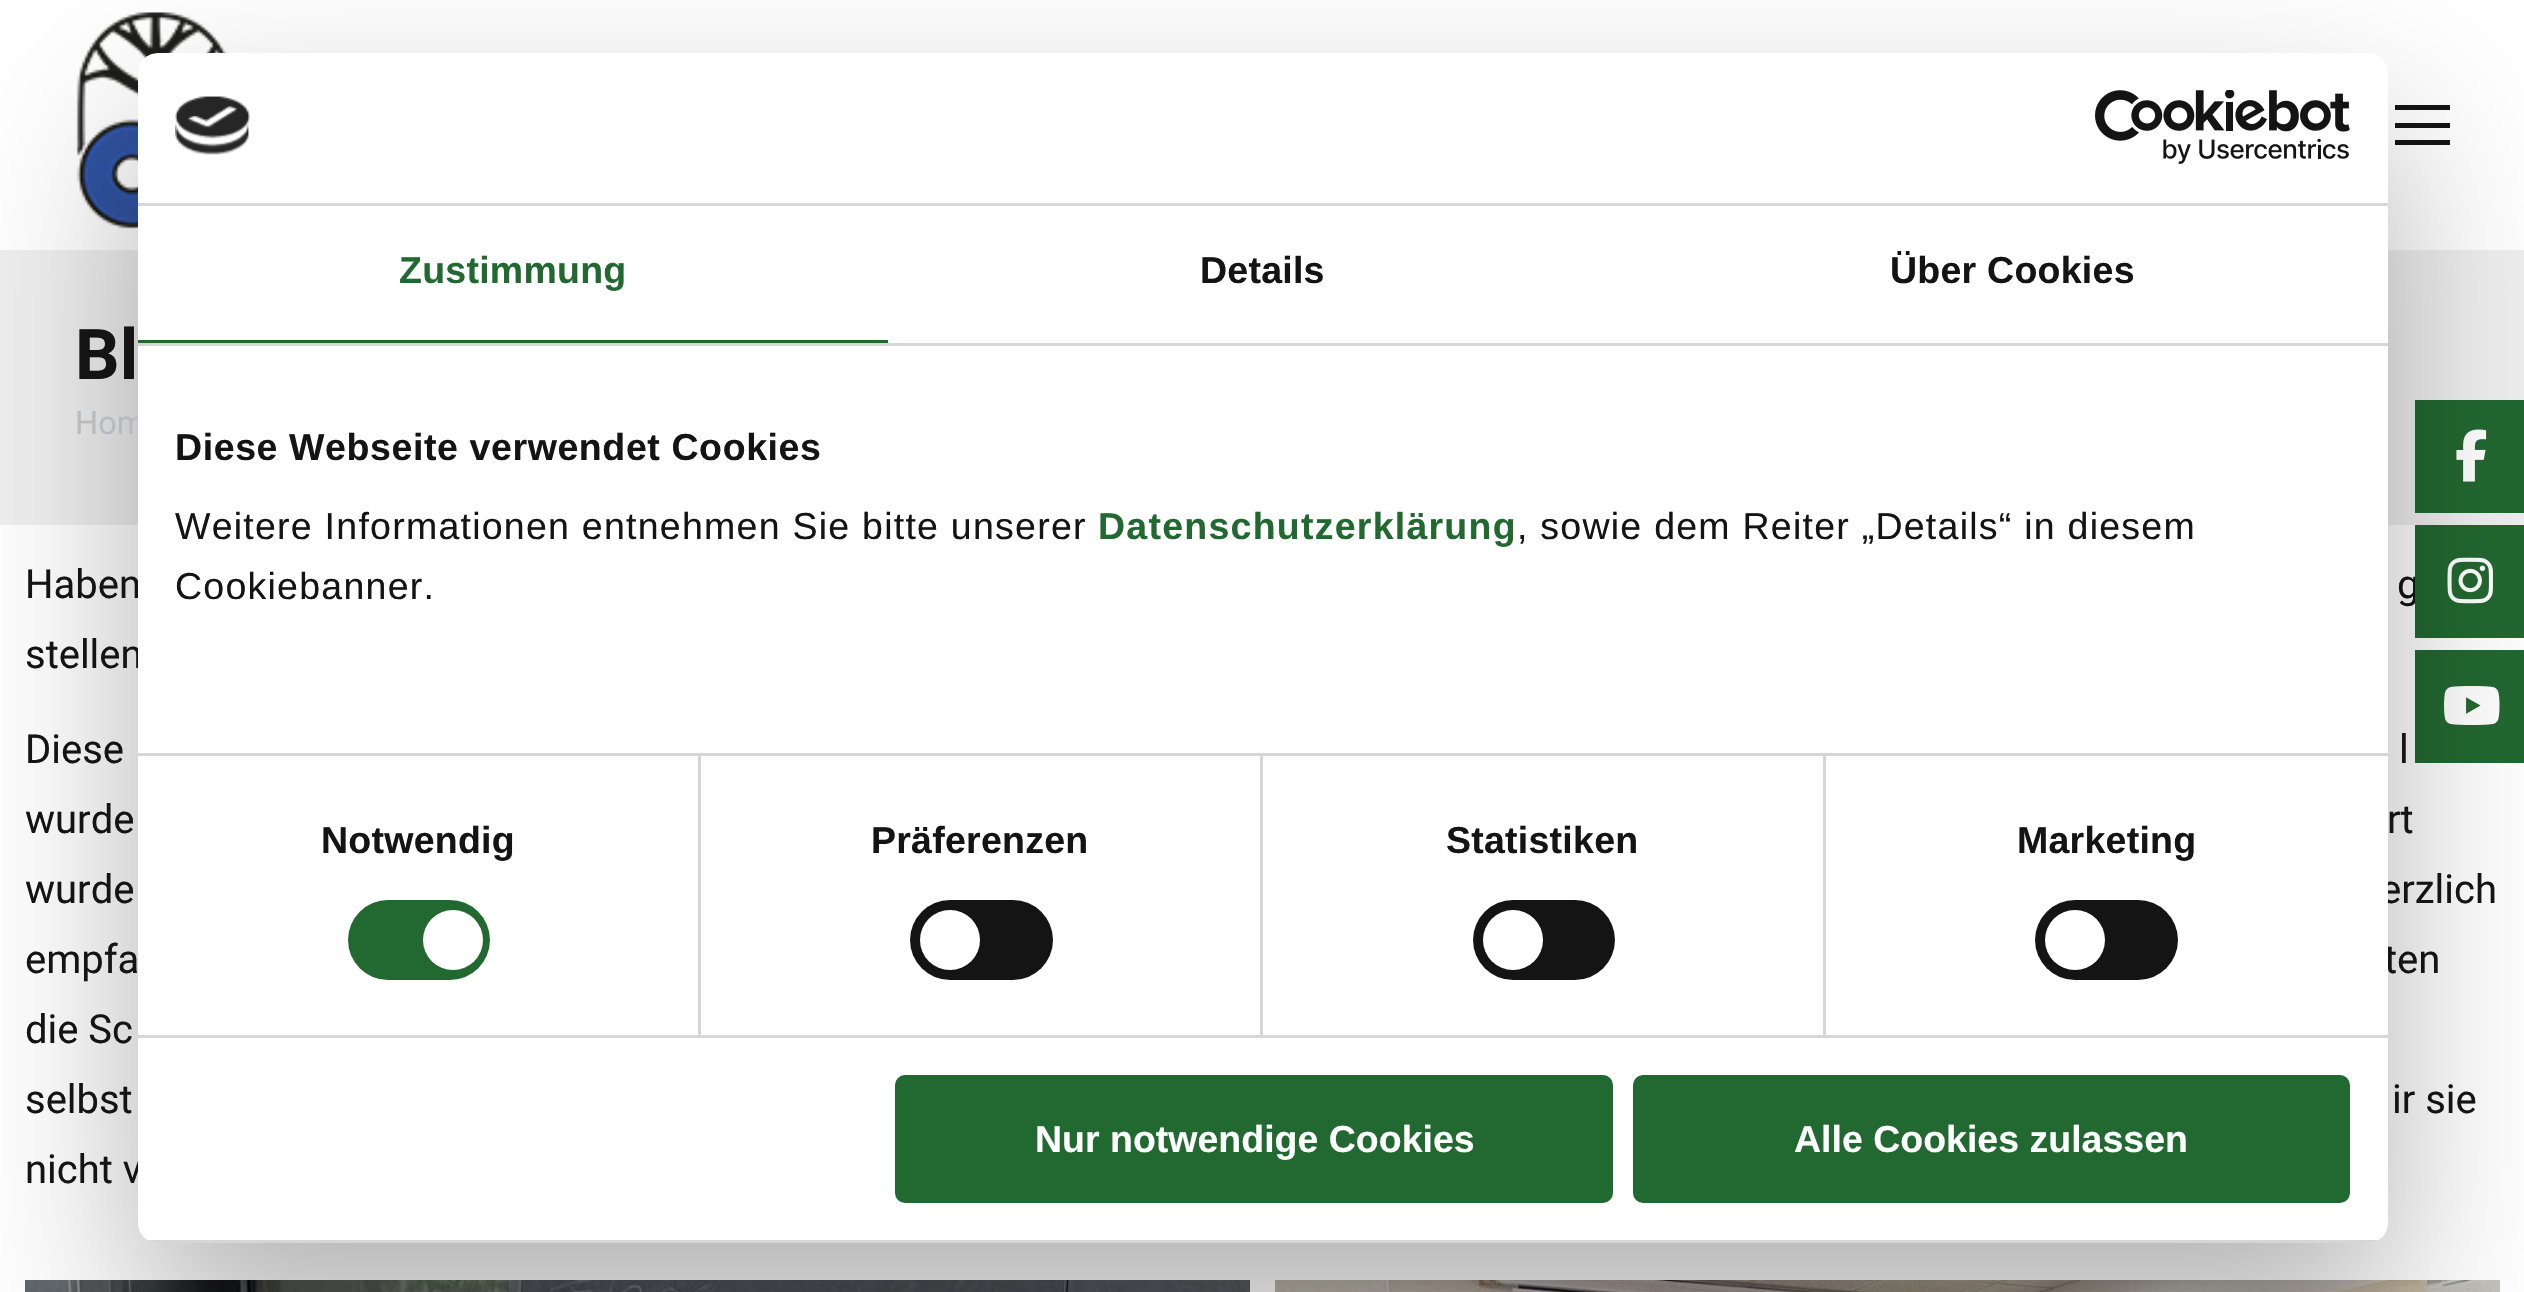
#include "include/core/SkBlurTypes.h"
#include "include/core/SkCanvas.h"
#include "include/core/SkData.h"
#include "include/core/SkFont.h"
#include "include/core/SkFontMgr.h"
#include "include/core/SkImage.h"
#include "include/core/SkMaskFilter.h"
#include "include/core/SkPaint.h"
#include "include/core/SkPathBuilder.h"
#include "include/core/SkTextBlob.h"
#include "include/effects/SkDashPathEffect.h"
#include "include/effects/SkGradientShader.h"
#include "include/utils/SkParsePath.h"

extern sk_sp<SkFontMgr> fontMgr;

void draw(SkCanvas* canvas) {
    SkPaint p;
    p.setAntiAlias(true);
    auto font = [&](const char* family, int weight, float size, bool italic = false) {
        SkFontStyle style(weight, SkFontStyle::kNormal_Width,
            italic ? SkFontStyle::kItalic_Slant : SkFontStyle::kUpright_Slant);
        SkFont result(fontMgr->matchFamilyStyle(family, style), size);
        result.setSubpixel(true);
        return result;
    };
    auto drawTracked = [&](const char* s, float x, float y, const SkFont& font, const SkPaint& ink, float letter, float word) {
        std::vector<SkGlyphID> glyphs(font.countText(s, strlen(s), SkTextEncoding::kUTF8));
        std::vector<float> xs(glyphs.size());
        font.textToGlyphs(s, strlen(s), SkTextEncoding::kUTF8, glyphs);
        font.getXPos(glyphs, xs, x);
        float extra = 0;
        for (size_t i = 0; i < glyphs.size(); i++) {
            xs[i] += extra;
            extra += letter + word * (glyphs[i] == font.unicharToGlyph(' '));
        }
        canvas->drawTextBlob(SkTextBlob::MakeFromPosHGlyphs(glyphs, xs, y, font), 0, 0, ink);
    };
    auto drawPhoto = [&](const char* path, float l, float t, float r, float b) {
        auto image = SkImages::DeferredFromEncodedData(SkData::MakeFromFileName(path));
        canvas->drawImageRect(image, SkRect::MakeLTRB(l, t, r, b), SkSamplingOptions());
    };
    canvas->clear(0xFFFFFFFF);
    drawPhoto("media/3.png", 76, 12, 226, 229);
    {
        const struct { float l, t, r, b; SkColor color; } items[] = {
            {2395, 105, 2450, 110, 0xFF141414},
            {2395, 123, 2450, 128, 0xFF141414},
            {2395, 140, 2450, 145, 0xFF141414},
            {0, 250, 2524, 525, 0xFFEFEFEF},
        };
        for (auto [l, t, r, b, color] : items) {
            p.setColor(color);
            canvas->drawRect(SkRect::MakeLTRB(l, t, r, b), p);
        }
    }
    drawPhoto("media/4.png", 25, 1280, 1250, 1292);
    drawPhoto("media/5.png", 1275, 1280, 2500, 1292);
    p.setColor(0xFF226831);
    canvas->drawRect(SkRect::MakeLTRB(2415, 400, 2524, 513), p);
    drawPhoto("media/6.png", 2456, 429, 2487, 482);
    auto font1 = font("Roboto", 400, 40);
    p.setColor(0xFF141414);
    canvas->drawString("g", 2397, 598, font1, p);
    p.setColor(0xFF226831);
    canvas->drawRect(SkRect::MakeLTRB(2415, 525, 2524, 638), p);
    drawPhoto("media/7.png", 2447, 557, 2493, 604);
    canvas->drawRect(SkRect::MakeLTRB(2415, 650, 2524, 763), p);
    drawPhoto("media/8.png", 2444, 686, 2500, 725);
    p.setColor(0x4D000000);
    p.setMaskFilter(SkMaskFilter::MakeBlur(kNormal_SkBlurStyle, 85));
    canvas->drawRoundRect(SkRect::MakeLTRB(138, 133, 2388, 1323), 20, 20, p);
    p.setMaskFilter(nullptr);
    auto font2 = font("Roboto", 400, 32.5f);
    p.setColor(0xFFB7BABE);
    canvas->drawString("Hom", 75, 434, font2, p);
    p.setColor(0xFF141414);
    {
        const struct { const char* s; float x, y; } items[] = {
            {"Haben", 25, 598},
            {"stellen", 25, 668},
            {"erzlich", 2380, 903},
            {"ten", 2384, 973},
            {"nicht v", 25, 1183},
        };
        for (auto [s, x, y] : items) {
            canvas->drawString(s, x, y, font1, p);
        }
    }
    p.setColor(0xFFFFFFFF);
    canvas->drawRoundRect(SkRect::MakeLTRB(138, 53, 2388, 1243), 20, 20, p);
    p.setColor(0xFFD6D6D6);
    canvas->drawRect(SkRect::MakeLTRB(138, 203, 2388, 206), p);
    drawPhoto("media/1.png", 175, 96, 250, 155);
    drawPhoto("media/2.png", 2095, 90, 2350, 164);
    canvas->drawRect(SkRect::MakeLTRB(138, 343, 2388, 346), p);
    p.setColor(0xFF226831);
    canvas->drawRect(SkRect::MakeLTRB(138, 340, 888, 343), p);
    auto font3 = font("Liberation Sans", 700, 37.5f);
    drawTracked("Zustimmung", 399, 283, font3, p, 0.25f, 0);
    p.setColor(0xFF141414);
    drawTracked("Details", 1200, 283, font3, p, 0.25f, 0);
    drawTracked("Über Cookies", 1890, 283, font3, p, 0.25f, 0);
    {
        const struct { float l, t, r, b; SkColor color; } items[] = {
            {698, 755, 701, 1035, 0xFFD6D6D6},
            {1260, 755, 1263, 1035, 0xFFD6D6D6},
            {1823, 755, 1826, 1035, 0xFFD6D6D6},
            {138, 753, 2388, 756, 0xFFD6D6D6},
        };
        for (auto [l, t, r, b, color] : items) {
            p.setColor(color);
            canvas->drawRect(SkRect::MakeLTRB(l, t, r, b), p);
        }
    }
    p.setColor(0xFF141414);
    drawTracked("Diese Webseite verwendet Cookies", 175, 460, font3, p, 0.6f, 0);
    auto font4 = font("Liberation Sans", 400, 37.5f);
    drawTracked("Weitere Informationen entnehmen Sie bitte unserer", 175, 539, font4, p, 1.25f, 0);
    p.setColor(0xFF226831);
    drawTracked("Datenschutzerklärung", 1098, 539, font3, p, 1.25f, 0);
    p.setColor(0xFF141414);
    drawTracked(", sowie dem Reiter „Details“ in diesem", 1517, 539, font4, p, 1.25f, 0);
    drawTracked("Cookiebanner.", 175, 599, font4, p, 1.25f, 0);
    p.setColor(0xFFD6D6D6);
    canvas->drawRect(SkRect::MakeLTRB(138, 1035, 2388, 1038), p);
    p.setColor(0xFF141414);
    drawTracked("Notwendig", 321, 853, font3, p, 0.25f, 0);
    p.setColor(0xFF226831);
    canvas->drawRoundRect(SkRect::MakeLTRB(348, 900, 490, 980), 40, 40, p);
    p.setColor(0xFFFFFFFF);
    canvas->drawCircle(453, 940, 30, p);
    p.setColor(0xFF141414);
    drawTracked("Präferenzen", 871, 853, font3, p, 0.25f, 0);
    canvas->drawRoundRect(SkRect::MakeLTRB(910, 900, 1053, 980), 40, 40, p);
    p.setColor(0xFFFFFFFF);
    canvas->drawCircle(950, 940, 30, p);
    p.setColor(0xFF141414);
    drawTracked("Statistiken", 1446, 853, font3, p, 0.25f, 0);
    canvas->drawRoundRect(SkRect::MakeLTRB(1473, 900, 1615, 980), 40, 40, p);
    p.setColor(0xFFFFFFFF);
    canvas->drawCircle(1513, 940, 30, p);
    p.setColor(0xFF141414);
    drawTracked("Marketing", 2017, 853, font3, p, 0.25f, 0);
    canvas->drawRoundRect(SkRect::MakeLTRB(2035, 900, 2178, 980), 40, 40, p);
    p.setColor(0xFFFFFFFF);
    canvas->drawCircle(2075, 940, 30, p);
    canvas->save();
    canvas->clipPath(SkPathBuilder().moveTo(158, 53).lineTo(2368, 53).cubicTo(2379, 53, 2388, 62, 2388, 73).lineTo(2388, 1223).cubicTo(2388, 1234, 2379, 1243, 2368, 1243).lineTo(158, 1243).cubicTo(147, 1243, 138, 1234, 138, 1223).lineTo(138, 73).cubicTo(138, 62, 147, 53, 158, 53).close().detach(), true);
    p.setColor(0xFFD6D6D6);
    canvas->drawRect(SkRect::MakeLTRB(147, 1240, 2379, 1243), p);
    canvas->restore();
    p.setColor(0xFF226831);
    canvas->drawRoundRect(SkRect::MakeLTRB(897.5f, 1077.5f, 1610.5f, 1200.5f), 7.5f, 7.5f, p);
    p.setStyle(SkPaint::kStroke_Style);
    p.setStrokeWidth(5);
    canvas->drawRoundRect(SkRect::MakeLTRB(897.5f, 1077.5f, 1610.5f, 1200.5f), 7.5f, 7.5f, p);
    p.setStyle(SkPaint::kFill_Style);
    p.setColor(0xFFFFFFFF);
    canvas->drawString("Nur notwendige Cookies", 1035, 1152, font3, p);
    p.setColor(0xFF226831);
    canvas->drawRoundRect(SkRect::MakeLTRB(1635.5f, 1077.5f, 2347.5f, 1200.5f), 7.5f, 7.5f, p);
    p.setStyle(SkPaint::kStroke_Style);
    canvas->drawRoundRect(SkRect::MakeLTRB(1635.5f, 1077.5f, 2347.5f, 1200.5f), 7.5f, 7.5f, p);
    p.setStyle(SkPaint::kFill_Style);
    p.setColor(0xFFFFFFFF);
    canvas->drawString("Alle Cookies zulassen", 1794, 1152, font3, p);
    auto font5 = font("Roboto", 700, 70);
    p.setColor(0xFF141414);
    canvas->drawString("Bl", 75, 379, font5, p);
    {
        const struct { const char* s; float x, y; } items[] = {
            {"Diese", 25, 763},
            {"l", 2399, 763},
            {"wurde", 25, 833},
            {"rt", 2387, 833},
            {"wurde", 25, 903},
            {"empfa", 25, 973},
            {"die Sc", 25, 1043},
            {"selbst", 25, 1113},
            {"ir sie", 2392, 1113},
        };
        for (auto [s, x, y] : items) {
            canvas->drawString(s, x, y, font1, p);
        }
    }
}
